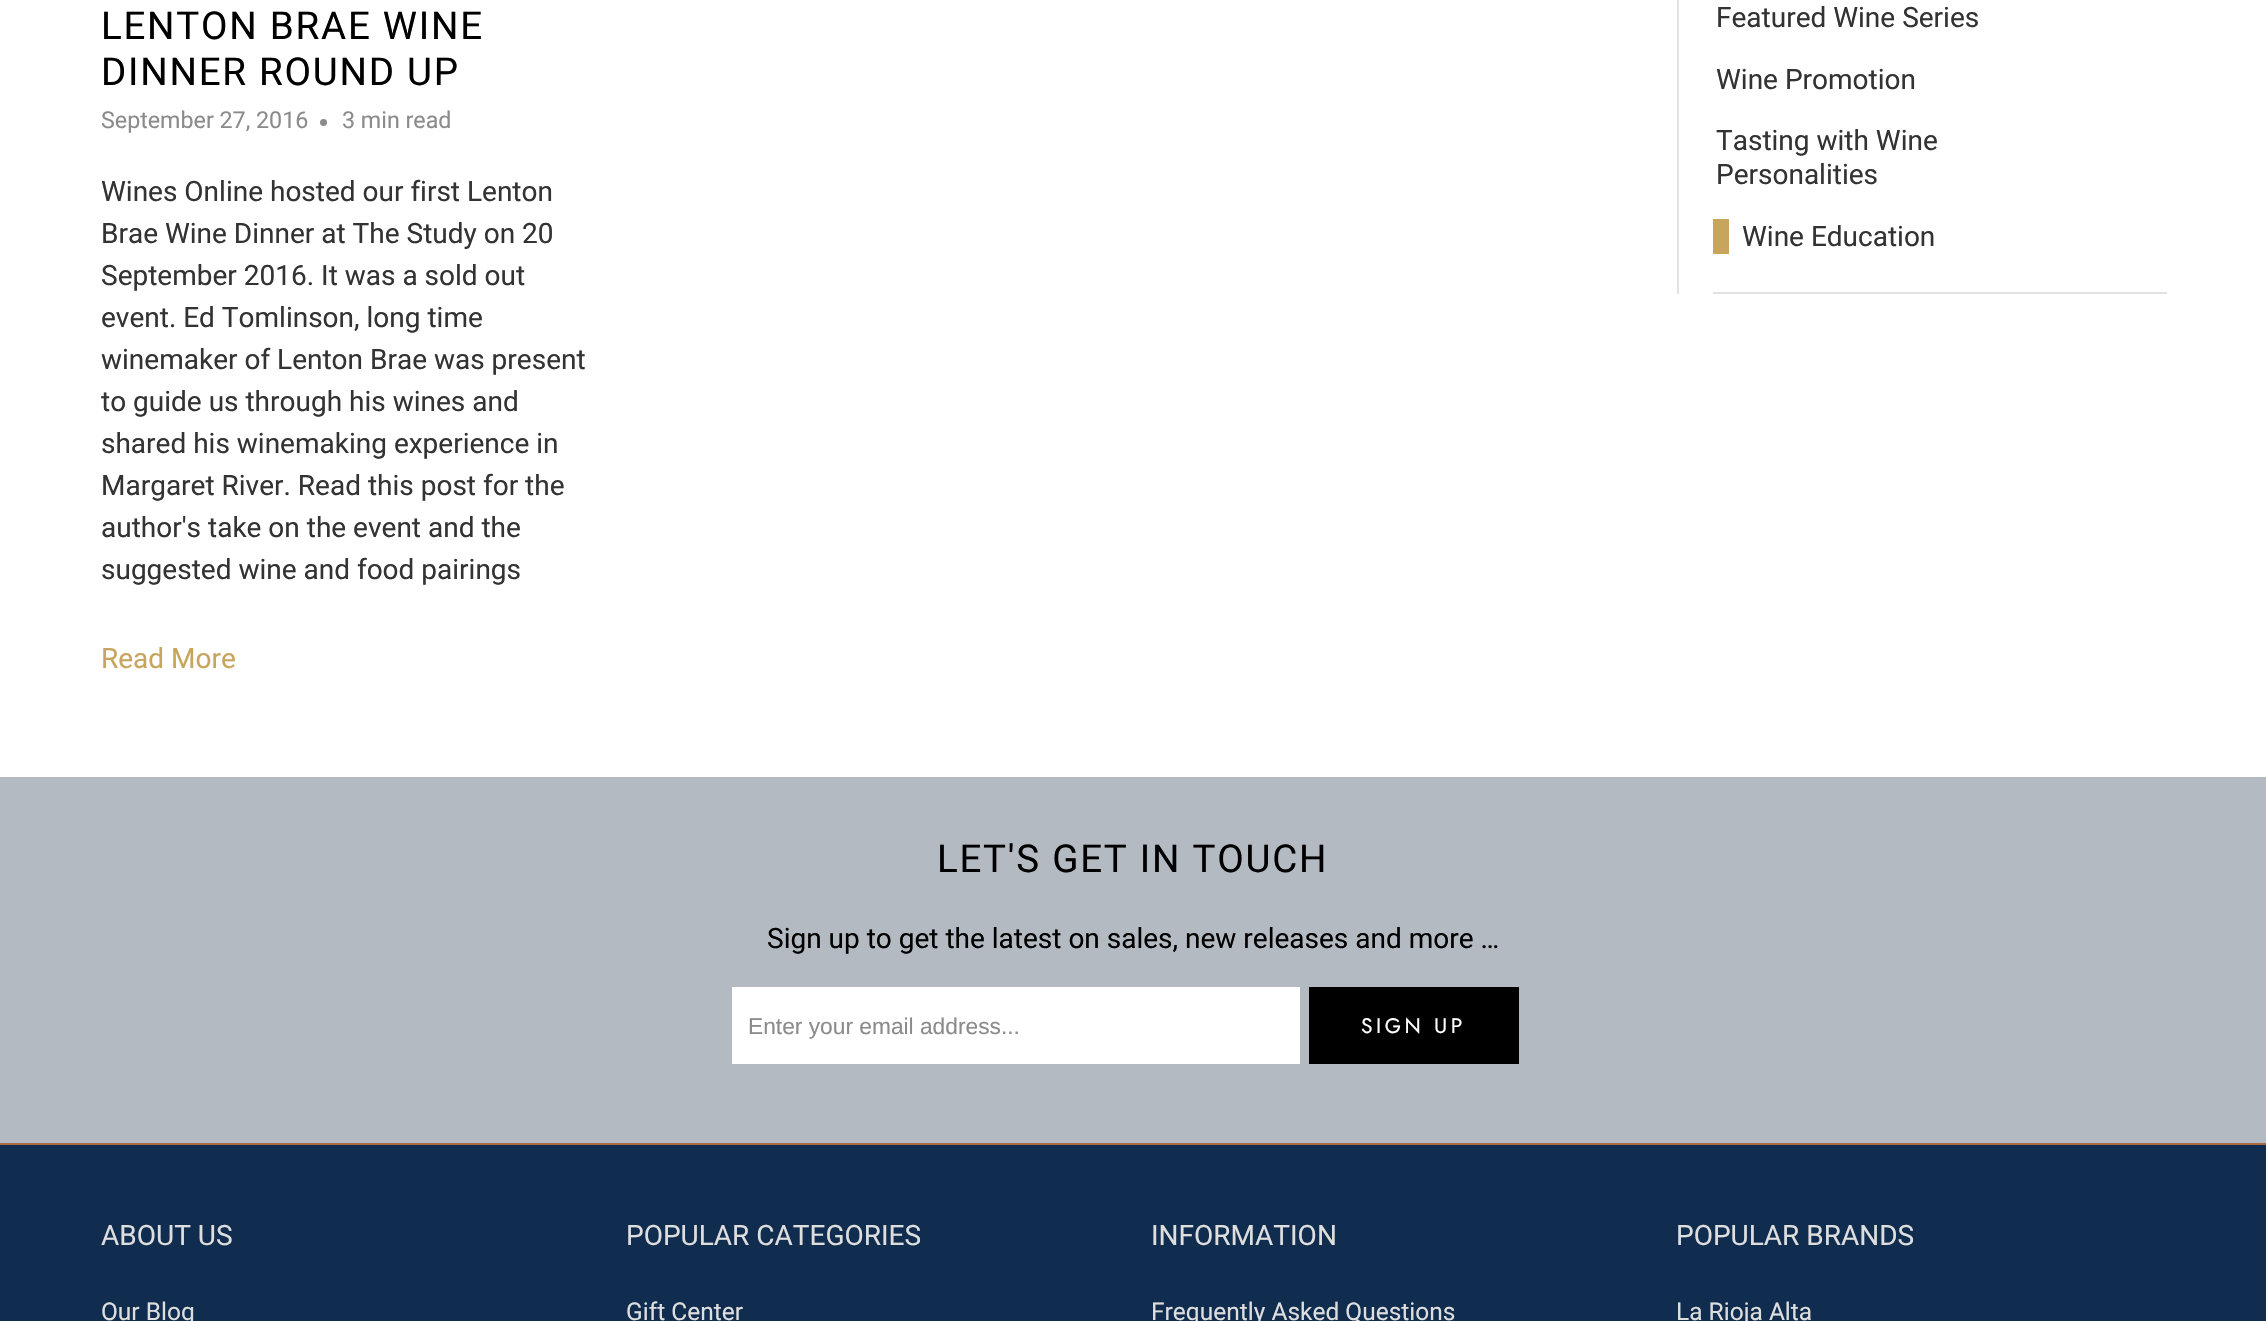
#include "include/core/SkBlurTypes.h"
#include "include/core/SkCanvas.h"
#include "include/core/SkData.h"
#include "include/core/SkFont.h"
#include "include/core/SkFontMgr.h"
#include "include/core/SkImage.h"
#include "include/core/SkMaskFilter.h"
#include "include/core/SkPaint.h"
#include "include/core/SkPathBuilder.h"
#include "include/core/SkTextBlob.h"
#include "include/effects/SkDashPathEffect.h"
#include "include/effects/SkGradientShader.h"
#include "include/utils/SkParsePath.h"

extern sk_sp<SkFontMgr> fontMgr;

void draw(SkCanvas* canvas) {
    SkPaint p;
    p.setAntiAlias(true);
    auto font = [&](const char* family, int weight, float size, bool italic = false) {
        SkFontStyle style(weight, SkFontStyle::kNormal_Width,
            italic ? SkFontStyle::kItalic_Slant : SkFontStyle::kUpright_Slant);
        SkFont result(fontMgr->matchFamilyStyle(family, style), size);
        result.setSubpixel(true);
        return result;
    };
    auto drawTracked = [&](const char* s, float x, float y, const SkFont& font, const SkPaint& ink, float letter, float word) {
        std::vector<SkGlyphID> glyphs(font.countText(s, strlen(s), SkTextEncoding::kUTF8));
        std::vector<float> xs(glyphs.size());
        font.textToGlyphs(s, strlen(s), SkTextEncoding::kUTF8, glyphs);
        font.getXPos(glyphs, xs, x);
        float extra = 0;
        for (size_t i = 0; i < glyphs.size(); i++) {
            xs[i] += extra;
            extra += letter + word * (glyphs[i] == font.unicharToGlyph(' '));
        }
        canvas->drawTextBlob(SkTextBlob::MakeFromPosHGlyphs(glyphs, xs, y, font), 0, 0, ink);
    };
    canvas->clear(0xFFFFFFFF);
    auto font1 = font("Roboto", 400, 38.5f);
    p.setColor(0xFF000000);
    drawTracked("LENTON BRAE WINE", 101, 39, font1, p, 1.75f, 0);
    drawTracked("DINNER ROUND UP", 101, 85, font1, p, 1.75f, 0);
    auto font2 = font("Roboto", 400, 23.25f);
    p.setColor(0xFF8C8B8B);
    canvas->drawString("September 27, 2016", 101, 128, font2, p);
    canvas->drawCircle(323.5f, 122.5f, 3.5f, p);
    canvas->drawString("3 min read", 342, 128, font2, p);
    auto font3 = font("Roboto", 400, 28);
    p.setColor(0xFF333333);
    {
        const struct { const char* s; float x, y; } items[] = {
            {"Wines Online hosted our first Lenton", 101, 201},
            {"Brae Wine Dinner at The Study on 20", 101, 243},
            {"September 2016. It was a sold out", 101, 285},
            {"event. Ed Tomlinson, long time", 101, 327},
            {"winemaker of Lenton Brae was present", 101, 369},
            {"to guide us through his wines and", 101, 411},
            {"shared his winemaking experience in", 101, 453},
            {"Margaret River. Read this post for the", 101, 495},
            {"author's take on the event and the", 101, 537},
            {"suggested wine and food pairings", 101, 579},
        };
        for (auto [s, x, y] : items) {
            canvas->drawString(s, x, y, font3, p);
        }
    }
    p.setColor(0xFFC7A55D);
    canvas->drawString("Read More", 101, 668, font3, p);
    p.setColor(0xFFE4E1E1);
    canvas->drawRect(SkRect::MakeLTRB(1677, 0, 1679, 294), p);
    p.setColor(0xFF333333);
    {
        const struct { const char* s; float x, y; } items[] = {
            {"Featured Wine Series", 1716, 27},
            {"Wine Promotion", 1716, 89},
            {"Tasting with Wine", 1716, 150},
            {"Personalities", 1716, 184},
        };
        for (auto [s, x, y] : items) {
            canvas->drawString(s, x, y, font3, p);
        }
    }
    p.setColor(0xFFC7A55D);
    canvas->drawRect(SkRect::MakeLTRB(1713, 219, 1729, 254), p);
    p.setColor(0xFF333333);
    canvas->drawString("Wine Education", 1742, 246, font3, p);
    p.setColor(0xFFE4E1E1);
    canvas->drawRect(SkRect::MakeLTRB(1713, 292, 2167, 294), p);
    p.setColor(0xFFB4BAC1);
    canvas->drawRect(SkRect::MakeLTRB(0, 777, 2266, 1143), p);
    p.setColor(0xFF000000);
    drawTracked("LET'S GET IN TOUCH", 937, 872, font1, p, 1.75f, 0);
    canvas->drawString("Sign up to get the latest on sales, new releases and more …", 767, 948, font3, p);
    p.setColor(0xFFFFFFFF);
    canvas->drawRect(SkRect::MakeLTRB(732, 987, 1300, 1064), p);
    auto font4 = font("Liberation Sans", 400, 22.75f);
    p.setColor(0xFF8C8B8B);
    canvas->drawString("Enter your email address...", 748, 1034, font4, p);
    p.setColor(0xFF000000);
    canvas->drawRect(SkRect::MakeLTRB(1309, 987, 1519, 1064), p);
    auto font5 = font("Jost", 400, 21);
    p.setColor(0xFFFFFFFF);
    drawTracked("SIGN UP", 1361, 1033, font5, p, 3.5f, 0);
    p.setColor(0xFF102C4E);
    canvas->drawRect(SkRect::MakeLTRB(0, 1145, 2266, 1321), p);
    p.setColor(0xFFAA6A41);
    canvas->drawRect(SkRect::MakeLTRB(0, 1143, 2266, 1145), p);
    p.setColor(0xFFDEDEDE);
    canvas->drawString("ABOUT US", 101, 1245, font3, p);
    auto font6 = font("Roboto", 400, 24.5f);
    canvas->drawString("Our Blog", 101, 1320, font6, p);
    canvas->drawString("POPULAR CATEGORIES", 626, 1245, font3, p);
    canvas->drawString("Gift Center", 626, 1320, font6, p);
    canvas->drawString("INFORMATION", 1151, 1245, font3, p);
    canvas->drawString("Frequently Asked Questions", 1151, 1320, font6, p);
    canvas->drawString("POPULAR BRANDS", 1676, 1245, font3, p);
    canvas->drawString("La Rioja Alta", 1676, 1320, font6, p);
}
